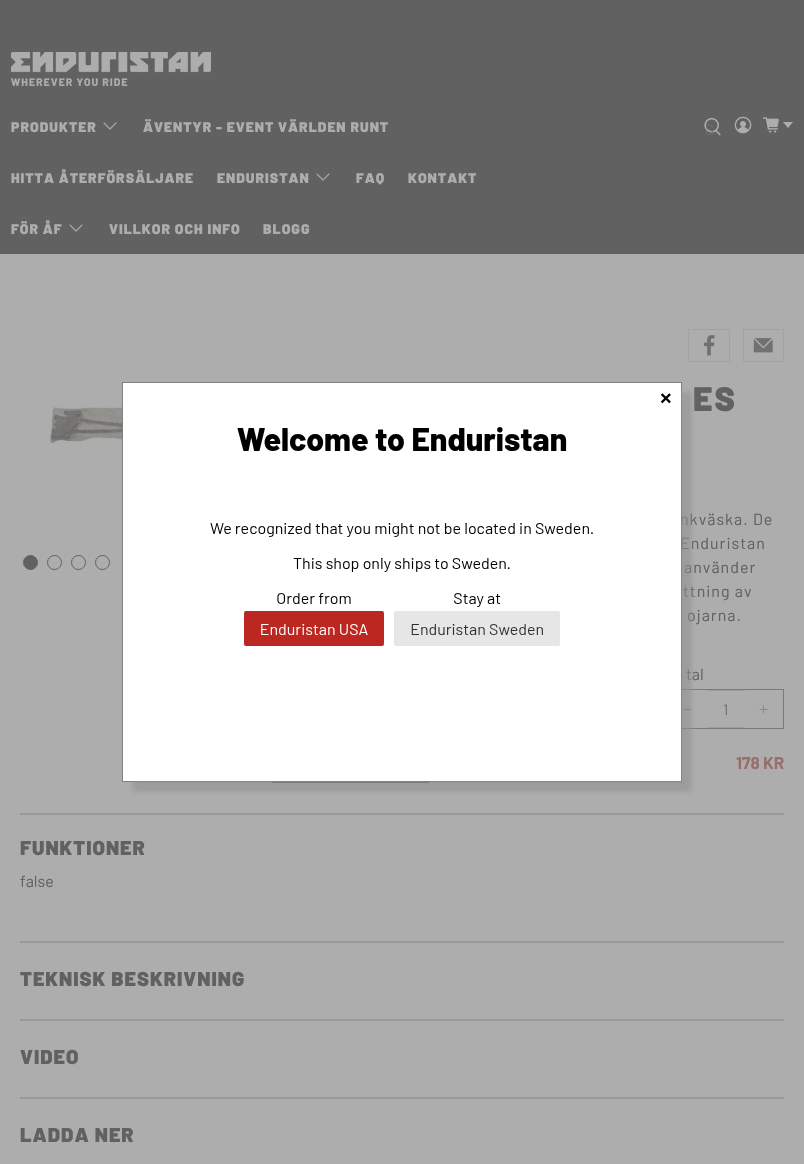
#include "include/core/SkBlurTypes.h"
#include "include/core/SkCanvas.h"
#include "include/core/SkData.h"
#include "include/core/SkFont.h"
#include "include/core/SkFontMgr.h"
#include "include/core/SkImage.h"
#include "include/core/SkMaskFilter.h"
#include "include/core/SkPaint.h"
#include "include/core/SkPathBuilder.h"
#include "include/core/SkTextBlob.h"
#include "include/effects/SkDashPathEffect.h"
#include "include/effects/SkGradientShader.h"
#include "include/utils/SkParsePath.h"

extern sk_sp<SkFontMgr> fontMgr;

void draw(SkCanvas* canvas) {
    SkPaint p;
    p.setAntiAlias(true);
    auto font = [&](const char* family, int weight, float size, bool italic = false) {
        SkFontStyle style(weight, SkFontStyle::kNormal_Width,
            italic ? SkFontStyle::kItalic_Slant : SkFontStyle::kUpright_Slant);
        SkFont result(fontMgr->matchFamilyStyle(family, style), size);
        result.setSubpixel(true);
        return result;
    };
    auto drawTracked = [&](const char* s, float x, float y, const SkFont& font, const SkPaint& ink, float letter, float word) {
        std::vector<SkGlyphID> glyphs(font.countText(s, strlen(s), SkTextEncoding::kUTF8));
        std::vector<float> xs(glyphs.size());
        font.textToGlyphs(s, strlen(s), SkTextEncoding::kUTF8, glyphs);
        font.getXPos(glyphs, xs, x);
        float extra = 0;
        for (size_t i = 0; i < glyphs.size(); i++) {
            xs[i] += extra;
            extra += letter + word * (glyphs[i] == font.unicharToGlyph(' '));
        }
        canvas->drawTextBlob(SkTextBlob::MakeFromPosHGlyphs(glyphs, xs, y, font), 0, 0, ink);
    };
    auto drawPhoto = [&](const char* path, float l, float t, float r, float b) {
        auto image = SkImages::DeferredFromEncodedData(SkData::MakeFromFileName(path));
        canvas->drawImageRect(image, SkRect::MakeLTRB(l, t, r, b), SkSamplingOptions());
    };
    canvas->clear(0xFFADADAD);
    p.setColor(0xFF616161);
    canvas->drawRect(SkRect::MakeLTRB(0, 0, 804, 254), p);
    auto font1 = font("Barlow", 900, 14);
    p.setColor(0xFFADADAD);
    drawTracked("PRODUKTER", 11, 132, font1, p, 1, 0);
    drawPhoto("media/1.png", 103, 122, 117, 130);
    {
        const struct { const char* s; float x, y; } items[] = {
            {"ÄVENTYR - EVENT VÄRLDEN RUNT", 143, 132},
            {"HITTA ÅTERFÖRSÄLJARE", 11, 183},
            {"ENDURISTAN", 217, 183},
        };
        for (auto [s, x, y] : items) {
            drawTracked(s, x, y, font1, p, 1, 0);
        }
    }
    drawPhoto("media/1.png", 316, 173, 330, 181);
    {
        const struct { const char* s; float x, y; } items[] = {
            {"FAQ", 356, 183},
            {"KONTAKT", 408, 183},
            {"FÖR ÅF", 11, 234},
        };
        for (auto [s, x, y] : items) {
            drawTracked(s, x, y, font1, p, 1, 0);
        }
    }
    drawPhoto("media/1.png", 69, 224, 83, 232);
    drawTracked("VILLKOR OCH INFO", 109, 234, font1, p, 1, 0);
    drawTracked("BLOGG", 263, 234, font1, p, 1, 0);
    drawPhoto("media/2.png", 11, 52, 211, 86);
    drawPhoto("media/3.png", 704, 118, 721, 136);
    auto font2 = font("Barlow", 400, 15);
    p.setColor(0xFF717171);
    canvas->drawString("S", 705, 135, font2, p);
    drawPhoto("media/4.png", 734, 116, 752, 134);
    drawPhoto("media/5.png", 763, 117, 779, 133);
    p.setColor(0xFFADADAD);
    canvas->drawPath(SkPathBuilder().moveTo(783, 122).lineTo(793, 122).lineTo(788, 128).close().detach(), p);
    drawPhoto("media/6.png", 49, 405, 122, 448);
    p.setColor(0xFF616161);
    canvas->drawCircle(30.5f, 562.5f, 7, p);
    p.setStyle(SkPaint::kStroke_Style);
    p.setStrokeWidth(1);
    canvas->drawCircle(30.5f, 562.5f, 7, p);
    canvas->drawCircle(54.5f, 562.5f, 7, p);
    canvas->drawCircle(78.5f, 562.5f, 7, p);
    canvas->drawCircle(102.5f, 562.5f, 7, p);
    p.setColor(0xFFA2A2A2);
    canvas->drawRect(SkRect::MakeLTRB(688.5f, 329.5f, 729.5f, 361.5f), p);
    drawPhoto("media/7.png", 704, 335, 715, 356);
    canvas->drawRect(SkRect::MakeLTRB(743.5f, 329.5f, 783.5f, 361.5f), p);
    drawPhoto("media/8.png", 753, 338, 773, 353);
    auto font3 = font("Barlow", 900, 34);
    p.setStyle(SkPaint::kFill_Style);
    p.setColor(0xFF616161);
    drawTracked("ES", 693, 411, font3, p, 2, 0);
    auto font4 = font("Barlow", 400, 16);
    {
        const struct { const char* s; float x, y; } items[] = {
            {"nkväska. De", 680, 525},
            {"Enduristan", 680, 549},
            {"använder", 684, 573},
            {"ttning av", 683, 597},
            {"ojarna.", 687, 621},
        };
        for (auto [s, x, y] : items) {
            drawTracked(s, x, y, font4, p, 1, 0);
        }
    }
    canvas->drawString("tal", 686, 680, font4, p);
    p.setStyle(SkPaint::kStroke_Style);
    p.setColor(0xFF7A7A7A);
    canvas->drawRect(SkRect::MakeLTRB(668.5f, 689.5f, 783.5f, 728.5f), p);
    p.setStyle(SkPaint::kFill_Style);
    {
        const struct { float l, t, r, b; SkColor color; } items[] = {
            {683, 709, 691, 710, 0xFFA26D69},
            {707, 690, 745, 691, 0xFF9D9D9D},
            {707, 727, 745, 728, 0xFF9D9D9D},
        };
        for (auto [l, t, r, b, color] : items) {
            p.setColor(color);
            canvas->drawRect(SkRect::MakeLTRB(l, t, r, b), p);
        }
    }
    p.setColor(0xFF717171);
    canvas->drawString("1", 723, 715, font2, p);
    drawPhoto("media/9.png", 759, 705, 768, 714);
    auto font5 = font("Barlow", 700, 17);
    p.setColor(0xFF996D6A);
    canvas->drawString("178 KR", 736, 769, font5, p);
    p.setColor(0xFF616161);
    canvas->drawRect(SkRect::MakeLTRB(272, 782, 429, 783), p);
    p.setColor(0xFF989898);
    canvas->drawRect(SkRect::MakeLTRB(20, 813, 784, 815), p);
    auto font6 = font("Barlow", 900, 20);
    p.setColor(0xFF616161);
    drawTracked("FUNKTIONER", 20, 855, font6, p, 1, 0);
    canvas->drawString("false", 20, 887, font4, p);
    p.setColor(0xFF989898);
    canvas->drawRect(SkRect::MakeLTRB(20, 941, 784, 943), p);
    p.setColor(0xFF616161);
    drawTracked("TEKNISK BESKRIVNING", 20, 986, font6, p, 1, 0);
    p.setColor(0xFF989898);
    canvas->drawRect(SkRect::MakeLTRB(20, 1019, 784, 1021), p);
    p.setColor(0xFF616161);
    drawTracked("VIDEO", 20, 1064, font6, p, 1, 0);
    p.setColor(0xFF989898);
    canvas->drawRect(SkRect::MakeLTRB(20, 1097, 784, 1099), p);
    p.setColor(0xFF616161);
    drawTracked("LADDA NER", 20, 1142, font6, p, 1, 0);
    p.setColor(0x598F8F8F);
    p.setMaskFilter(SkMaskFilter::MakeBlur(kNormal_SkBlurStyle, 2.5f));
    canvas->drawRect(SkRect::MakeLTRB(132, 392, 692, 792), p);
    p.setMaskFilter(nullptr);
    p.setColor(0xFFFFFFFF);
    canvas->drawRect(SkRect::MakeLTRB(122.5f, 382.5f, 681.5f, 781.5f), p);
    p.setStyle(SkPaint::kStroke_Style);
    p.setColor(0xFF808080);
    canvas->drawRect(SkRect::MakeLTRB(122.5f, 382.5f, 681.5f, 781.5f), p);
    canvas->save();
    canvas->clipPath(SkPathBuilder(SkPathFillType::kEvenOdd).moveTo(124, 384).lineTo(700, 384).lineTo(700, 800).lineTo(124, 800).close().moveTo(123, 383).lineTo(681, 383).lineTo(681, 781).lineTo(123, 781).close().detach(), true);
    p.setStyle(SkPaint::kFill_Style);
    p.setColor(0x598F8F8F);
    p.setMaskFilter(SkMaskFilter::MakeBlur(kNormal_SkBlurStyle, 2.5f));
    canvas->drawRect(SkRect::MakeLTRB(133, 393, 691, 791), p);
    p.setMaskFilter(nullptr);
    canvas->restore();
    auto font7 = font("Liberation Sans", 700, 20);
    p.setColor(0xFF000000);
    canvas->drawString("×", 660, 405, font7, p);
    drawPhoto("media/10.png", 210, 427, 593, 646);
}
